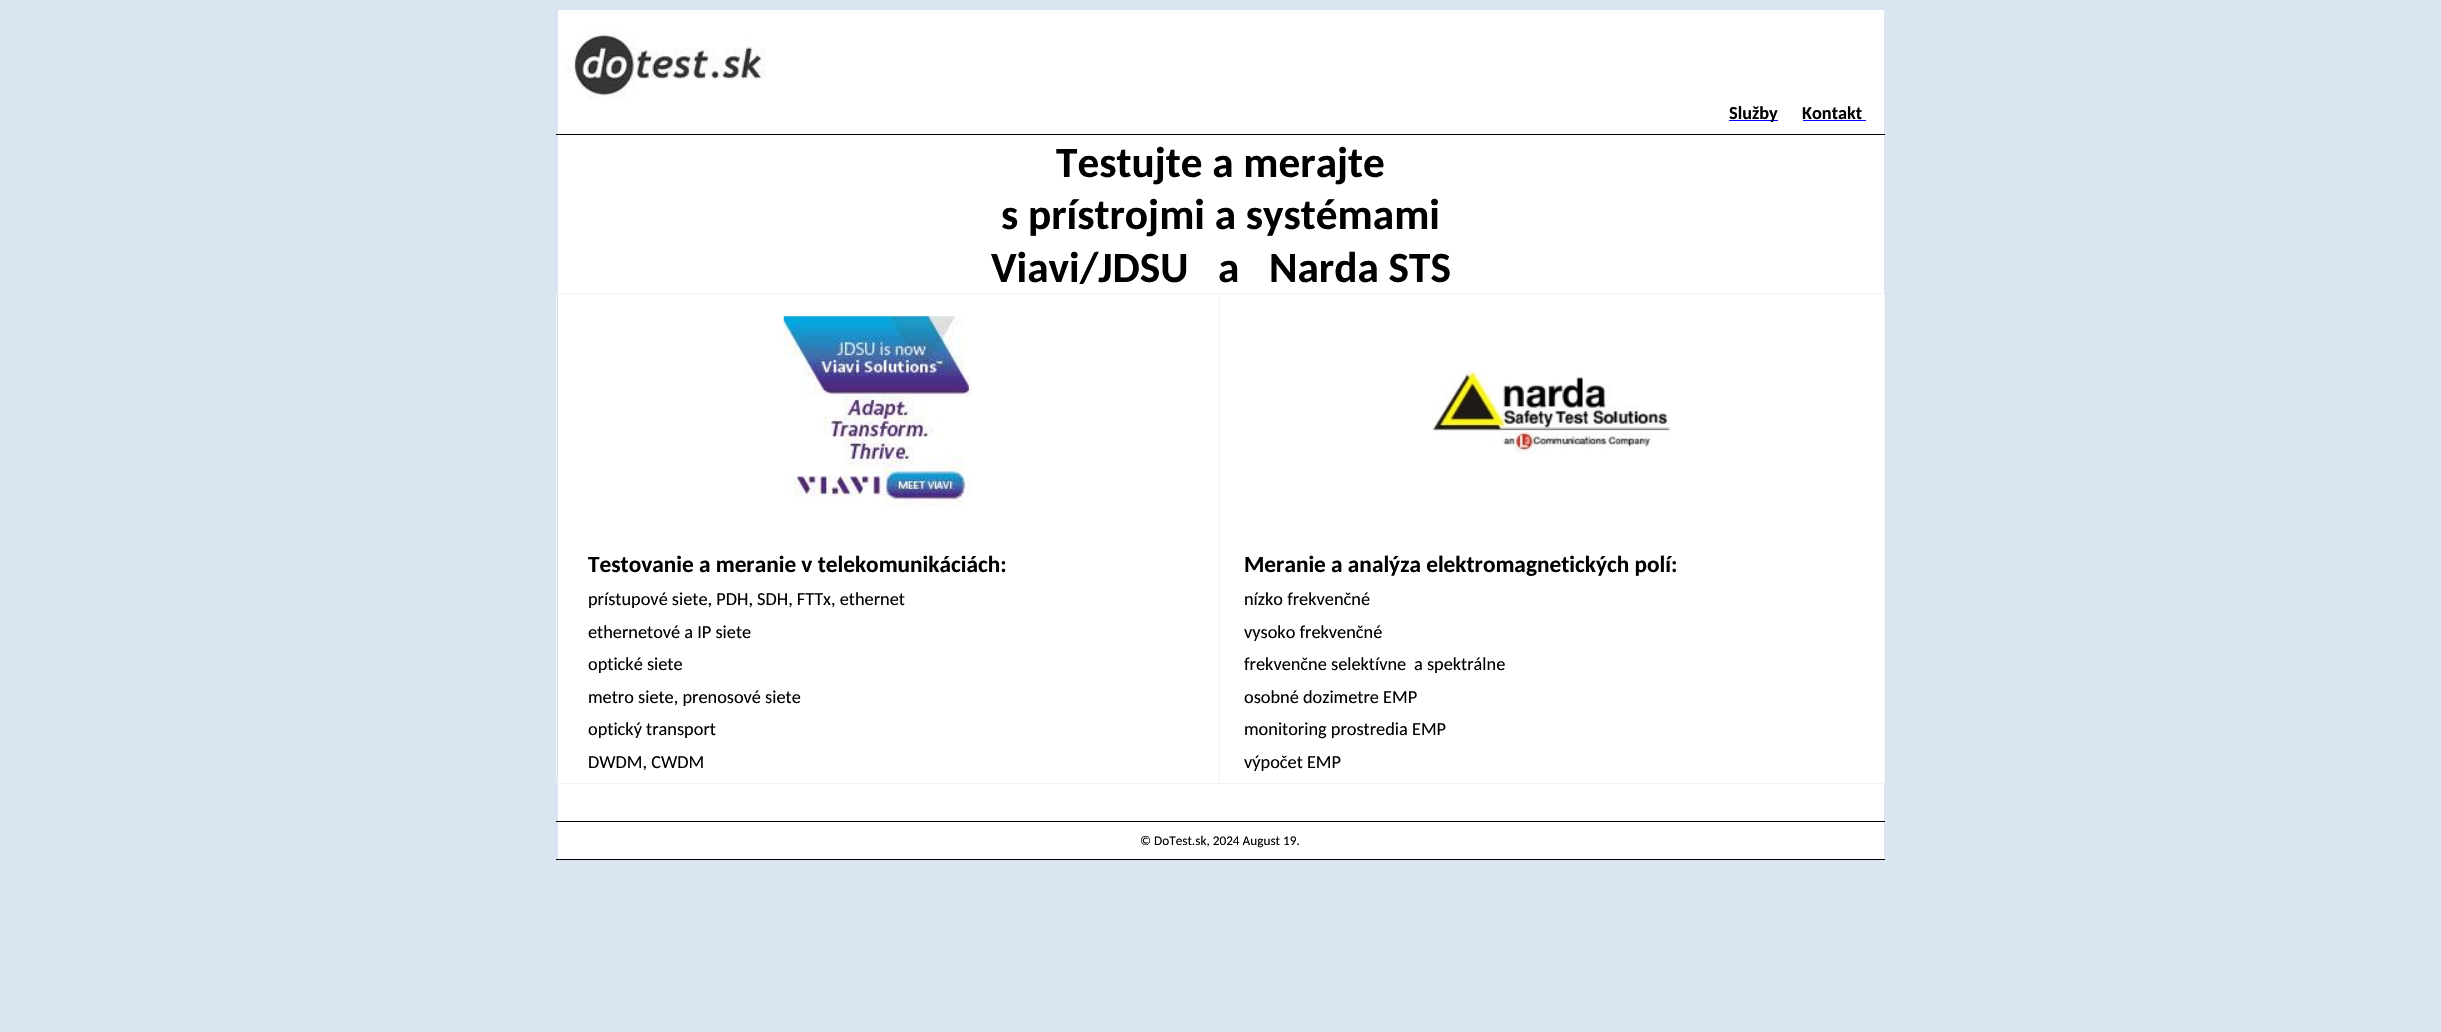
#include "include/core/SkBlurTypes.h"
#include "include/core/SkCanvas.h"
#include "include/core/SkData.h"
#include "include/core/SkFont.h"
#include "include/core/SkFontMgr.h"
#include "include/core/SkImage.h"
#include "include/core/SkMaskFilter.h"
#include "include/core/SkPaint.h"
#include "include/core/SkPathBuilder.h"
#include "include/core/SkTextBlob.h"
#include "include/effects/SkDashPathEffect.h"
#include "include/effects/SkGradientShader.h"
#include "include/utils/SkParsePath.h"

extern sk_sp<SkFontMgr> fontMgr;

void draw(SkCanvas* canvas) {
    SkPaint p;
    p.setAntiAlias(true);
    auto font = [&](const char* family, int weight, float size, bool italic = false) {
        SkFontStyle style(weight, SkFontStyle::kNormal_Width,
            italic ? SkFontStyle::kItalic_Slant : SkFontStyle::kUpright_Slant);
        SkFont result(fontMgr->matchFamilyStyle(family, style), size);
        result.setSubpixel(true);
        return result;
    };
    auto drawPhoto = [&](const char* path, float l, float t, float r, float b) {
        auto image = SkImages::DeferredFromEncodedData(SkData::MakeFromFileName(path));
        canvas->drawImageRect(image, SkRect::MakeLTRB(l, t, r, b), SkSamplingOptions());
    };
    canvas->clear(0xFFDBE5F1);
    p.setColor(0xFFFFFFFF);
    canvas->drawRect(SkRect::MakeLTRB(558, 10, 1884, 134), p);
    p.setColor(0xFF000000);
    canvas->drawRect(SkRect::MakeLTRB(556, 134, 1885, 135), p);
    drawPhoto("media/1.png", 566, 30, 767, 99);
    p.setColor(0xFF0000FF);
    canvas->drawRect(SkRect::MakeLTRB(1729, 120, 1778, 121), p);
    auto font1 = font("Carlito", 700, 18.3f);
    p.setColor(0xFF000000);
    canvas->drawString("Služby", 1729, 119, font1, p);
    canvas->drawString("Kontakt", 1802, 119, font1, p);
    {
        const struct { float l, t, r, b; SkColor color; } items[] = {
            {1803, 120, 1866, 121, 0xFF0000FF},
            {558, 135, 1884, 293, 0xFFFFFFFF},
            {1884, 293, 1885, 784, 0xFFF2F2F2},
            {1219, 783, 1885, 784, 0xFFF2F2F2},
            {1219, 293, 1220, 784, 0xFFF2F2F2},
            {556, 783, 1220, 784, 0xFFF2F2F2},
            {556, 293, 557, 784, 0xFFF2F2F2},
            {556, 293, 1885, 294, 0xFFF2F2F2},
        };
        for (auto [l, t, r, b, color] : items) {
            p.setColor(color);
            canvas->drawRect(SkRect::MakeLTRB(l, t, r, b), p);
        }
    }
    auto font2 = font("Carlito", 700, 43.25f);
    p.setColor(0xFF000000);
    {
        const struct { const char* s; float x, y; } items[] = {
            {"Testujte a merajte", 1056, 177},
            {"s prístrojmi a systémami", 1001, 229},
            {"Viavi/JDSU", 991, 282},
            {"a", 1218, 282},
            {"Narda STS", 1269, 282},
        };
        for (auto [s, x, y] : items) {
            canvas->drawString(s, x, y, font2, p);
        }
    }
    p.setColor(0xFFFFFFFF);
    canvas->drawRect(SkRect::MakeLTRB(558, 294, 1219, 783), p);
    canvas->drawRect(SkRect::MakeLTRB(1220, 294, 1884, 783), p);
    drawPhoto("media/2.png", 783, 316, 972, 507);
    drawPhoto("media/3.png", 1432, 371, 1670, 454);
    auto font3 = font("Carlito", 700, 23.3f);
    p.setColor(0xFF000000);
    canvas->drawString("Testovanie a meranie v telekomunikáciách:", 588, 572, font3, p);
    auto font4 = font("Carlito", 400, 18.3f);
    {
        const struct { const char* s; float x, y; } items[] = {
            {"prístupové siete, PDH, SDH, FTTx, ethernet", 588, 605},
            {"ethernetové a IP siete", 588, 638},
            {"optické siete", 588, 670},
            {"metro siete, prenosové siete", 588, 703},
            {"optický transport", 588, 735},
            {"DWDM, CWDM", 588, 768},
        };
        for (auto [s, x, y] : items) {
            canvas->drawString(s, x, y, font4, p);
        }
    }
    canvas->drawString("Meranie a analýza elektromagnetických polí:", 1244, 572, font3, p);
    {
        const struct { const char* s; float x, y; } items[] = {
            {"nízko frekvenčné", 1244, 605},
            {"vysoko frekvenčné", 1244, 638},
            {"frekvenčne selektívne", 1244, 670},
            {"a spektrálne", 1414, 670},
            {"osobné dozimetre EMP", 1244, 703},
            {"monitoring prostredia EMP", 1244, 735},
            {"výpočet EMP", 1244, 768},
        };
        for (auto [s, x, y] : items) {
            canvas->drawString(s, x, y, font4, p);
        }
    }
    {
        const struct { float l, t, r, b; SkColor color; } items[] = {
            {558, 784, 1884, 821, 0xFFFFFFFF},
            {556, 821, 1885, 822, 0xFF000000},
            {558, 822, 1884, 859, 0xFFFFFFFF},
            {556, 859, 1885, 860, 0xFF000000},
        };
        for (auto [l, t, r, b, color] : items) {
            p.setColor(color);
            canvas->drawRect(SkRect::MakeLTRB(l, t, r, b), p);
        }
    }
    auto font5 = font("Carlito", 400, 13.25f);
    canvas->drawString("© DoTest.sk, 2024 August 19.", 1140, 845, font5, p);
}
